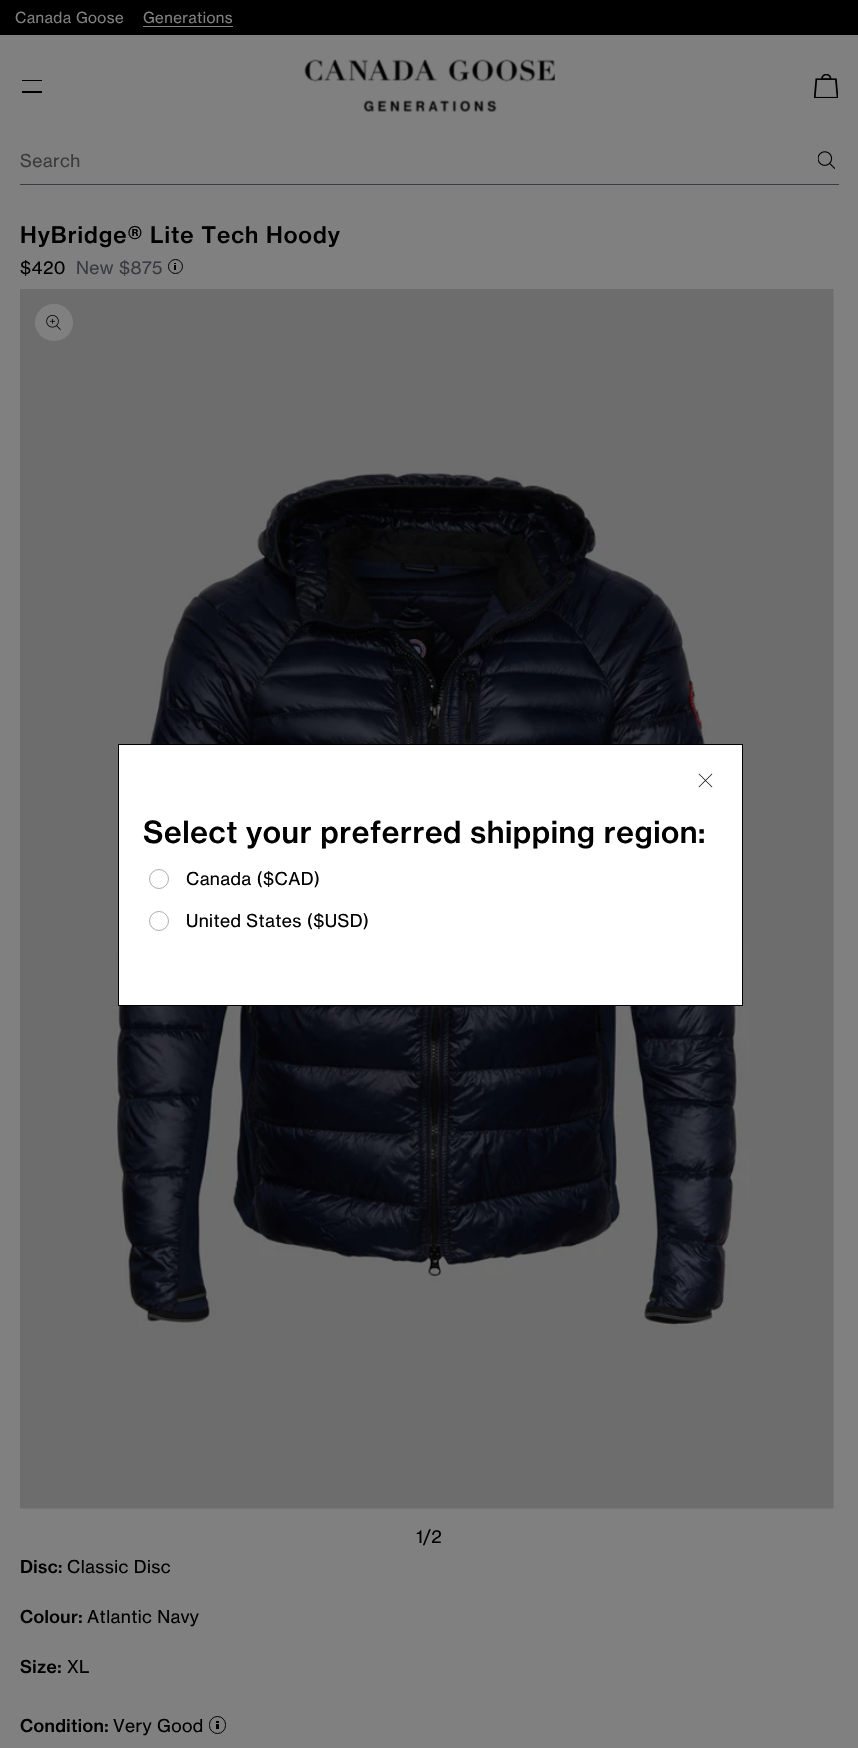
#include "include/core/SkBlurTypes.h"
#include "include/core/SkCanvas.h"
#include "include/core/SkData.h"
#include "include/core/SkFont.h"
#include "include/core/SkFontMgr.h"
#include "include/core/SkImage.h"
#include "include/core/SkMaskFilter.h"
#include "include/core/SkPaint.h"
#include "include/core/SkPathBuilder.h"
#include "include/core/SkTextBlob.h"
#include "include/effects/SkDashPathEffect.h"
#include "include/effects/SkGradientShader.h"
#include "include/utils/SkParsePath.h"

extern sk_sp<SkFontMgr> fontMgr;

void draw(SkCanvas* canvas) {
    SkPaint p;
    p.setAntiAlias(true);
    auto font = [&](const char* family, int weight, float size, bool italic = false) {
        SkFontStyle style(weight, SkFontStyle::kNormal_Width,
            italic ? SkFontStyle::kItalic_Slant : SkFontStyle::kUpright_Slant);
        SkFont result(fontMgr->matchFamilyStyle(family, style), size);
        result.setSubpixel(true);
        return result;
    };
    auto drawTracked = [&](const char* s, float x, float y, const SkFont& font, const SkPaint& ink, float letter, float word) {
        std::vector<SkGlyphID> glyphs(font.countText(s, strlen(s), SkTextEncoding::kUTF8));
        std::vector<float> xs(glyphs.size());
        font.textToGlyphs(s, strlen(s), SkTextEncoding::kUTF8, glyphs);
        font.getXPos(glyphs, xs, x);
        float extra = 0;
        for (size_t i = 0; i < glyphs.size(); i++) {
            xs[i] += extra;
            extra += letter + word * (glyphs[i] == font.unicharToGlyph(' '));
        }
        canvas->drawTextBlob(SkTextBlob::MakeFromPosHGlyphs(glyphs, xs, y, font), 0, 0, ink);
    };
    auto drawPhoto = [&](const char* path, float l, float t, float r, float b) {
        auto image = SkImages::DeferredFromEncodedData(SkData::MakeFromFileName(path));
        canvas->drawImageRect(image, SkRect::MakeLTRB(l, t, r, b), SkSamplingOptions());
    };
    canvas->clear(0xFF808080);
    p.setColor(0xFF000000);
    canvas->drawRect(SkRect::MakeLTRB(0, 0, 858, 35), p);
    auto font1 = font("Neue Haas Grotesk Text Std", 400, 15);
    p.setColor(0xFF808080);
    drawTracked("Canada Goose", 15, 23, font1, p, 0.4f, 0);
    drawTracked("Generations", 143, 23, font1, p, 0.4f, 0);
    {
        const struct { float l, t, r, b; SkColor color; } items[] = {
            {143, 26, 233, 27, 0xFF808080},
            {22, 80, 42, 81, 0xFF000000},
            {22, 91, 42, 93, 0xFF000000},
        };
        for (auto [l, t, r, b, color] : items) {
            p.setColor(color);
            canvas->drawRect(SkRect::MakeLTRB(l, t, r, b), p);
        }
    }
    drawPhoto("media/1.png", 304, 59, 555, 112);
    drawPhoto("media/2.png", 814, 74, 838, 98);
    p.setColor(0xFF393A42);
    canvas->drawRect(SkRect::MakeLTRB(20, 184, 839, 185), p);
    auto font2 = font("Neue Haas Grotesk Text Std", 400, 17.5f);
    p.setColor(0xFF3B3B3B);
    drawTracked("Search", 20, 167, font2, p, 0.4f, 0);
    drawPhoto("media/3.png", 818, 151, 835, 169);
    auto font3 = font("Neue Haas Grotesk Text Std", 500, 22.5f);
    p.setColor(0xFF000000);
    drawTracked("HyBridge® Lite Tech Hoody", 20, 243, font3, p, 1, 0);
    drawTracked("$420", 20, 274, font2, p, 0.4f, 0);
    p.setColor(0xFF393A42);
    drawTracked("New $875", 76, 274, font2, p, 0.4f, 0);
    p.setStyle(SkPaint::kStroke_Style);
    p.setStrokeWidth(1);
    p.setColor(0xFF000000);
    canvas->drawCircle(175.5f, 266.5f, 7, p);
    p.setStyle(SkPaint::kFill_Style);
    canvas->drawRect(SkRect::MakeLTRB(174, 263, 176, 264), p);
    canvas->drawRect(SkRect::MakeLTRB(174, 265, 176, 270), p);
    drawPhoto("media/4.png", 20, 289, 834, 1509);
    p.setColor(0xFF808080);
    canvas->drawRoundRect(SkRect::MakeLTRB(35, 304, 73, 341), 18.5f, 18.5f, p);
    drawPhoto("media/5.png", 46, 315, 61, 330);
    p.setColor(0xFF000000);
    drawTracked("1/2", 416, 1543, font2, p, 0.4f, 0);
    auto font4 = font("Neue Haas Grotesk Text Std", 500, 17.5f);
    drawTracked("Disc:", 20, 1573, font4, p, 0.4f, 0);
    drawTracked("Classic Disc", 67, 1573, font2, p, 0.4f, 0);
    drawTracked("Colour:", 20, 1623, font4, p, 0.4f, 0);
    drawTracked("Atlantic Navy", 87, 1623, font2, p, 0.4f, 0);
    drawTracked("Size:", 20, 1673, font4, p, 0.4f, 0);
    drawTracked("XL", 67, 1673, font2, p, 0.4f, 0);
    drawTracked("Condition:", 20, 1732, font4, p, 0.4f, 0);
    drawTracked("Very Good", 113, 1732, font2, p, 0.4f, 0);
    p.setStyle(SkPaint::kStroke_Style);
    canvas->drawRoundRect(SkRect::MakeLTRB(209.5f, 1716.5f, 225.5f, 1733.5f), 8, 8, p);
    p.setStyle(SkPaint::kFill_Style);
    canvas->drawRect(SkRect::MakeLTRB(216, 1721, 219, 1723), p);
    canvas->drawRect(SkRect::MakeLTRB(216, 1724, 219, 1729), p);
    p.setColor(0xFFFFFFFF);
    canvas->drawRect(SkRect::MakeLTRB(118.5f, 744.5f, 742.5f, 1005.5f), p);
    p.setStyle(SkPaint::kStroke_Style);
    p.setColor(0xFF000000);
    canvas->drawRect(SkRect::MakeLTRB(118.5f, 744.5f, 742.5f, 1005.5f), p);
    drawPhoto("media/6.png", 698, 773, 713, 788);
    auto font5 = font("Neue Haas Grotesk Text Std", 500, 30);
    p.setStyle(SkPaint::kFill_Style);
    drawTracked("Select your preferred shipping region:", 143, 843, font5, p, 0.6f, 0);
    p.setStyle(SkPaint::kStroke_Style);
    p.setStrokeWidth(0.6f);
    p.setColor(0xFF727483);
    canvas->drawCircle(159, 879, 9.5f, p);
    p.setStyle(SkPaint::kFill_Style);
    p.setColor(0xFF000000);
    drawTracked("Canada ($CAD)", 186, 885, font2, p, 0.4f, 0);
    p.setStyle(SkPaint::kStroke_Style);
    p.setColor(0xFF727483);
    canvas->drawCircle(159, 921, 9.5f, p);
    p.setStyle(SkPaint::kFill_Style);
    p.setColor(0xFF000000);
    drawTracked("United States ($USD)", 186, 927, font2, p, 0.4f, 0);
}
